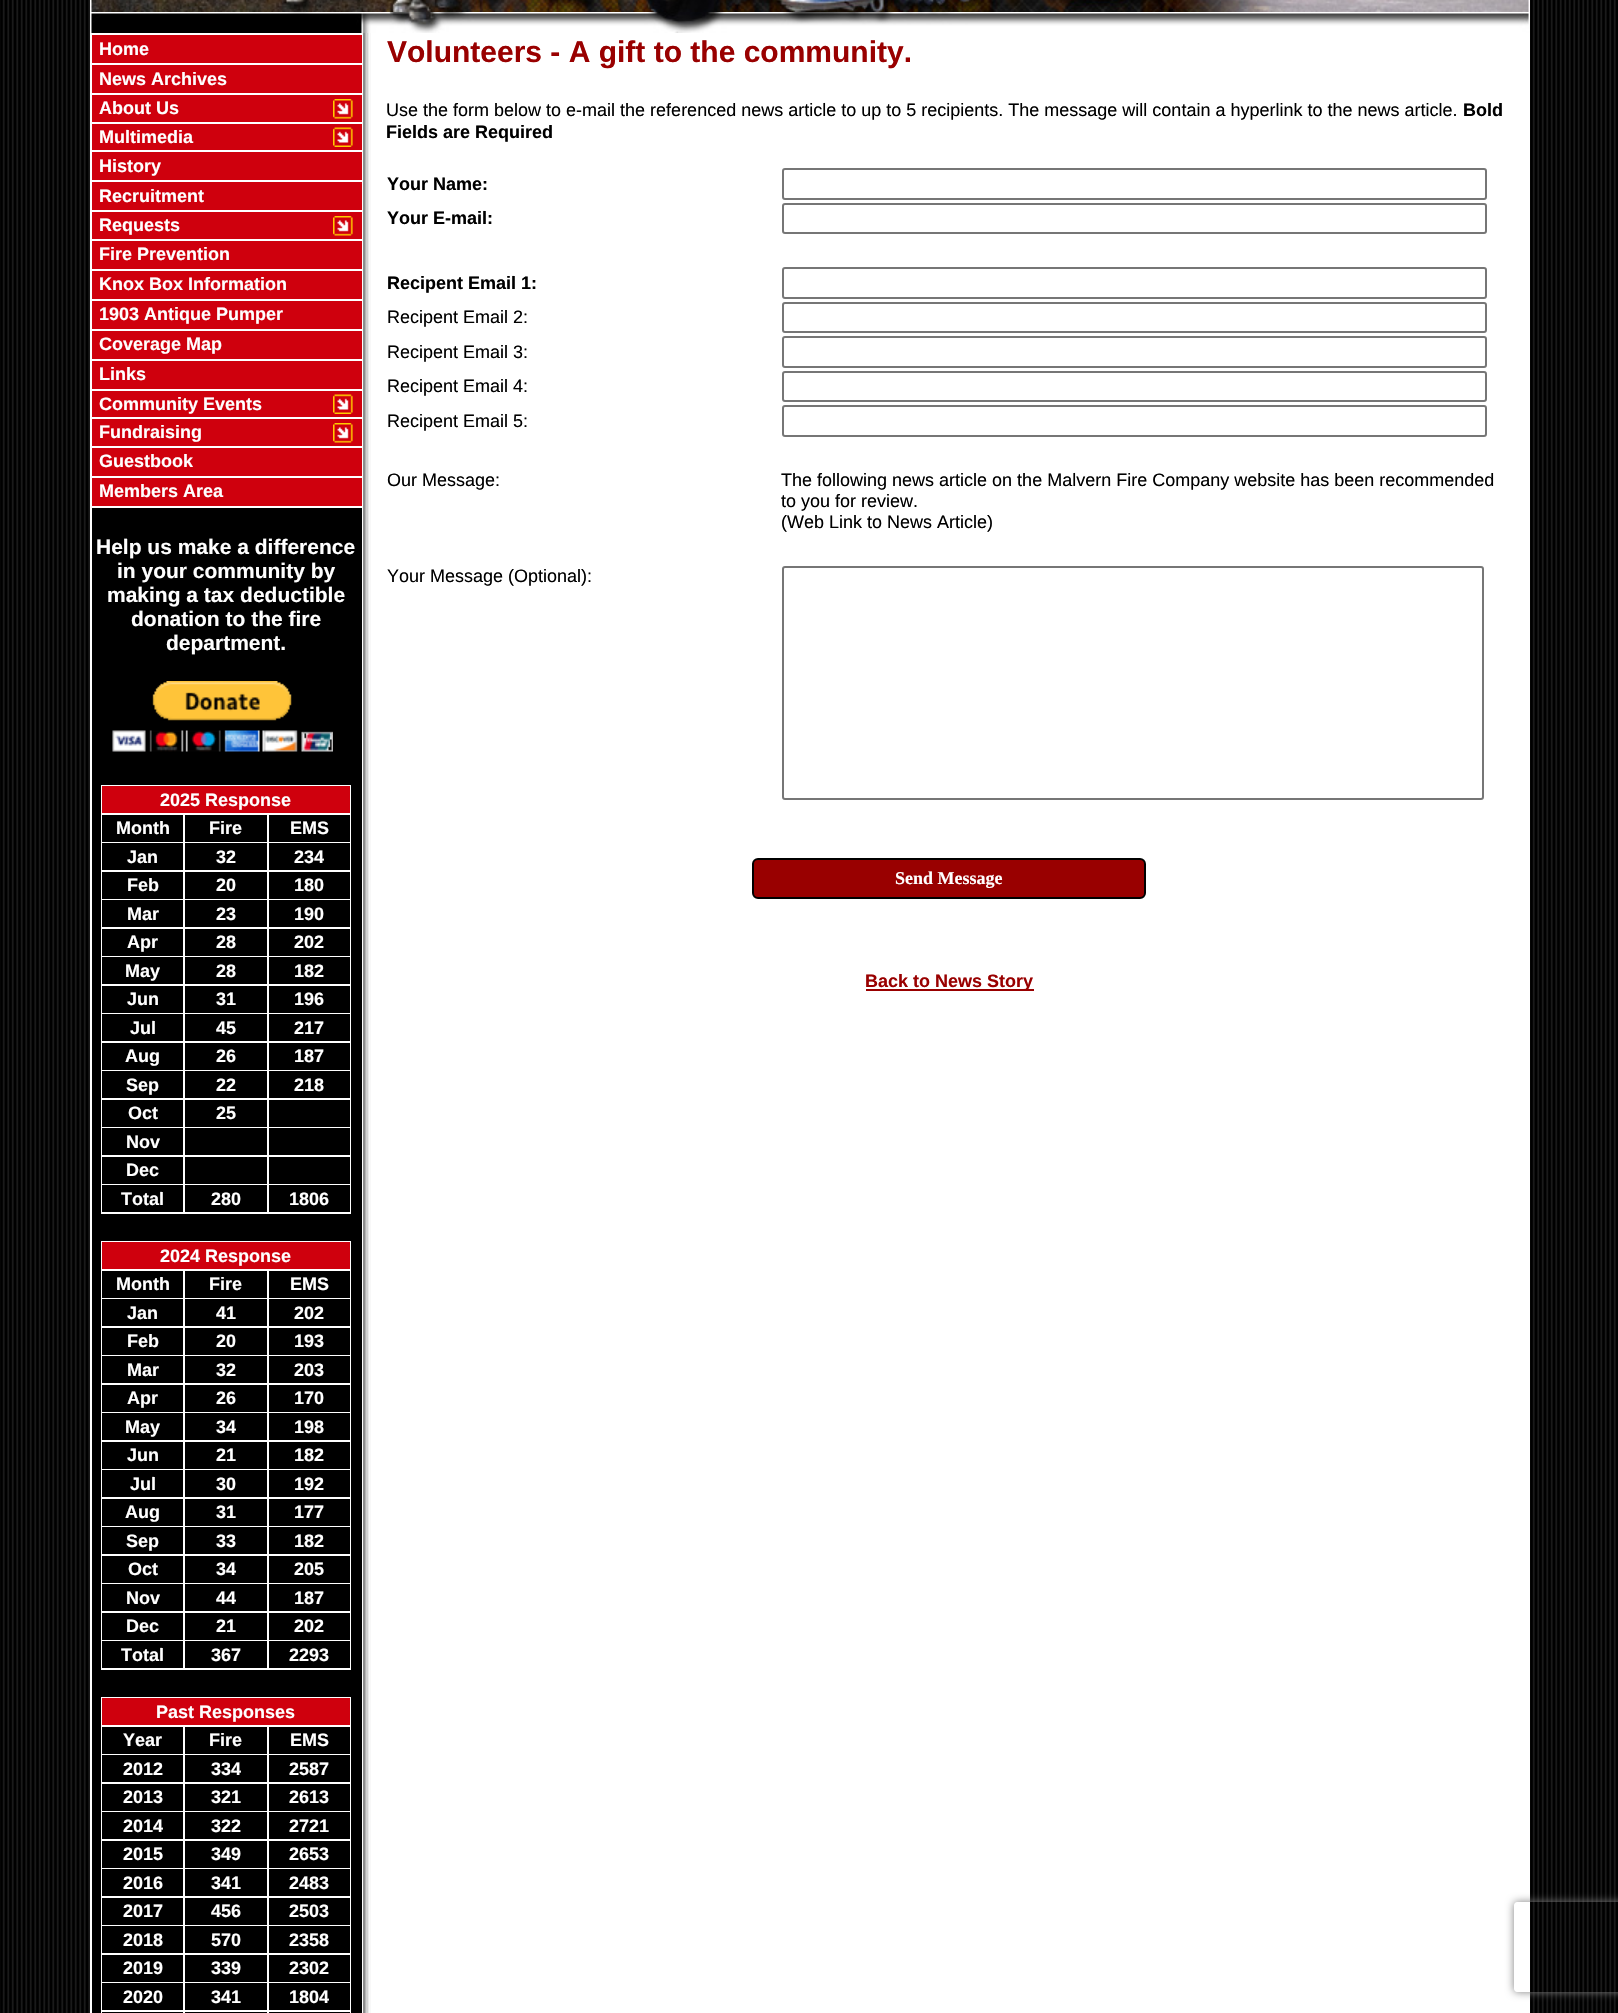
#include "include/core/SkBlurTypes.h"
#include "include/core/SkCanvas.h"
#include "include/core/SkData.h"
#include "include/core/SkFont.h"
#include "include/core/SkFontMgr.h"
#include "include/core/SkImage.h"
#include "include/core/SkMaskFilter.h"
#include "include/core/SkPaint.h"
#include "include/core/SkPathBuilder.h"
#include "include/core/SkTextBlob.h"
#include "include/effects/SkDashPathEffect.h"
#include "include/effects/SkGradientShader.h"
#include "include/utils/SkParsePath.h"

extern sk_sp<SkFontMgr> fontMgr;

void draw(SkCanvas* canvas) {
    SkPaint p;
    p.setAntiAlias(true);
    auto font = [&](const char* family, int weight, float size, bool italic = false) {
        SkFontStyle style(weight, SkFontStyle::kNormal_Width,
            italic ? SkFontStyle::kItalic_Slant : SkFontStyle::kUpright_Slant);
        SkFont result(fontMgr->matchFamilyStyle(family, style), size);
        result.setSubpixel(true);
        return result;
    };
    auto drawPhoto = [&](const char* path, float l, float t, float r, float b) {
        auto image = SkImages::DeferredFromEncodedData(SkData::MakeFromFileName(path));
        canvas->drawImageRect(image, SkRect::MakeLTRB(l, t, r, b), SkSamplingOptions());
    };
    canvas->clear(0xFFFFFFFF);
    drawPhoto("media/1.png", 0, 0, 1618, 2013);
    drawPhoto("media/2.png", 90, 0, 1173, 12);
    drawPhoto("media/3.png", 1173, 0, 1177, 12);
    drawPhoto("media/4.png", 1177, 0, 1530, 12);
    drawPhoto("media/5.png", 90, 12, 1530, 33);
    {
        const struct { float l, t, r, b; SkColor color; } items[] = {
            {90, 33, 92, 2013, 0xFFFFFFFF},
            {92, 508, 361, 2013, 0xFF000000},
            {92, 33, 362, 35, 0xFFFFFFFF},
            {92, 35, 362, 506, 0xFFCF000D},
        };
        for (auto [l, t, r, b, color] : items) {
            p.setColor(color);
            canvas->drawRect(SkRect::MakeLTRB(l, t, r, b), p);
        }
    }
    auto font1 = font("Liberation Sans", 700, 18);
    p.setColor(0xFFFFFFFF);
    canvas->drawString("Home", 99, 55, font1, p);
    canvas->drawRect(SkRect::MakeLTRB(92, 63, 362, 65), p);
    canvas->drawString("News Archives", 99, 85, font1, p);
    canvas->drawRect(SkRect::MakeLTRB(92, 93, 362, 95), p);
    canvas->drawString("About Us", 99, 114, font1, p);
    drawPhoto("media/6.png", 333, 99, 353, 119);
    canvas->drawRect(SkRect::MakeLTRB(92, 122, 362, 124), p);
    canvas->drawString("Multimedia", 99, 143, font1, p);
    drawPhoto("media/7.png", 333, 127, 353, 147);
    canvas->drawRect(SkRect::MakeLTRB(92, 150, 362, 152), p);
    canvas->drawString("History", 99, 172, font1, p);
    canvas->drawRect(SkRect::MakeLTRB(92, 180, 362, 182), p);
    canvas->drawString("Recruitment", 99, 202, font1, p);
    canvas->drawRect(SkRect::MakeLTRB(92, 210, 362, 212), p);
    canvas->drawString("Requests", 99, 231, font1, p);
    drawPhoto("media/6.png", 333, 216, 353, 236);
    canvas->drawRect(SkRect::MakeLTRB(92, 239, 362, 241), p);
    canvas->drawString("Fire Prevention", 99, 260, font1, p);
    canvas->drawRect(SkRect::MakeLTRB(92, 269, 362, 271), p);
    canvas->drawString("Knox Box Information", 99, 290, font1, p);
    canvas->drawRect(SkRect::MakeLTRB(92, 299, 362, 301), p);
    canvas->drawString("1903 Antique Pumper", 99, 320, font1, p);
    canvas->drawRect(SkRect::MakeLTRB(92, 329, 362, 331), p);
    canvas->drawString("Coverage Map", 99, 350, font1, p);
    canvas->drawRect(SkRect::MakeLTRB(92, 359, 362, 361), p);
    canvas->drawString("Links", 99, 380, font1, p);
    canvas->drawRect(SkRect::MakeLTRB(92, 389, 362, 391), p);
    canvas->drawString("Community Events", 99, 410, font1, p);
    drawPhoto("media/7.png", 333, 394, 353, 414);
    canvas->drawRect(SkRect::MakeLTRB(92, 417, 362, 419), p);
    canvas->drawString("Fundraising", 99, 438, font1, p);
    drawPhoto("media/6.png", 333, 423, 353, 443);
    canvas->drawRect(SkRect::MakeLTRB(92, 446, 362, 448), p);
    canvas->drawString("Guestbook", 99, 467, font1, p);
    canvas->drawRect(SkRect::MakeLTRB(92, 476, 362, 478), p);
    canvas->drawString("Members Area", 99, 497, font1, p);
    canvas->drawRect(SkRect::MakeLTRB(92, 506, 362, 508), p);
    auto font2 = font("Liberation Sans", 700, 21);
    {
        const struct { const char* s; float x, y; } items[] = {
            {"Help us make a difference", 96, 554},
            {"in your community by", 117, 578},
            {"making a tax deductible", 107, 602},
            {"donation to the fire", 131, 626},
            {"department.", 166, 650},
        };
        for (auto [s, x, y] : items) {
            canvas->drawString(s, x, y, font2, p);
        }
    }
    drawPhoto("media/8.png", 112, 681, 333, 752);
    canvas->drawRect(SkRect::MakeLTRB(101, 785, 351, 1214), p);
    p.setColor(0xFFCF000D);
    canvas->drawRect(SkRect::MakeLTRB(102, 786, 350, 813), p);
    p.setColor(0xFFFFFFFF);
    canvas->drawString("2025 Response", 160, 806, font1, p);
    p.setColor(0xFF000000);
    canvas->drawRect(SkRect::MakeLTRB(102, 815, 183, 842), p);
    p.setColor(0xFFFFFFFF);
    canvas->drawString("Month", 116, 834, font1, p);
    p.setColor(0xFF000000);
    canvas->drawRect(SkRect::MakeLTRB(185, 815, 267, 842), p);
    p.setColor(0xFFFFFFFF);
    canvas->drawString("Fire", 209, 834, font1, p);
    p.setColor(0xFF000000);
    canvas->drawRect(SkRect::MakeLTRB(269, 815, 350, 842), p);
    p.setColor(0xFFFFFFFF);
    canvas->drawString("EMS", 290, 834, font1, p);
    p.setColor(0xFF000000);
    canvas->drawRect(SkRect::MakeLTRB(102, 843, 183, 870), p);
    p.setColor(0xFFFFFFFF);
    canvas->drawString("Jan", 127, 863, font1, p);
    p.setColor(0xFF000000);
    canvas->drawRect(SkRect::MakeLTRB(185, 843, 267, 870), p);
    p.setColor(0xFFFFFFFF);
    canvas->drawString("32", 216, 863, font1, p);
    p.setColor(0xFF000000);
    canvas->drawRect(SkRect::MakeLTRB(269, 843, 350, 870), p);
    p.setColor(0xFFFFFFFF);
    canvas->drawString("234", 294, 863, font1, p);
    p.setColor(0xFF000000);
    canvas->drawRect(SkRect::MakeLTRB(102, 872, 183, 899), p);
    p.setColor(0xFFFFFFFF);
    canvas->drawString("Feb", 127, 891, font1, p);
    p.setColor(0xFF000000);
    canvas->drawRect(SkRect::MakeLTRB(185, 872, 267, 899), p);
    p.setColor(0xFFFFFFFF);
    canvas->drawString("20", 216, 891, font1, p);
    p.setColor(0xFF000000);
    canvas->drawRect(SkRect::MakeLTRB(269, 872, 350, 899), p);
    p.setColor(0xFFFFFFFF);
    canvas->drawString("180", 294, 891, font1, p);
    p.setColor(0xFF000000);
    canvas->drawRect(SkRect::MakeLTRB(102, 900, 183, 927), p);
    p.setColor(0xFFFFFFFF);
    canvas->drawString("Mar", 127, 920, font1, p);
    p.setColor(0xFF000000);
    canvas->drawRect(SkRect::MakeLTRB(185, 900, 267, 927), p);
    p.setColor(0xFFFFFFFF);
    canvas->drawString("23", 216, 920, font1, p);
    p.setColor(0xFF000000);
    canvas->drawRect(SkRect::MakeLTRB(269, 900, 350, 927), p);
    p.setColor(0xFFFFFFFF);
    canvas->drawString("190", 294, 920, font1, p);
    p.setColor(0xFF000000);
    canvas->drawRect(SkRect::MakeLTRB(102, 929, 183, 956), p);
    p.setColor(0xFFFFFFFF);
    canvas->drawString("Apr", 127, 948, font1, p);
    p.setColor(0xFF000000);
    canvas->drawRect(SkRect::MakeLTRB(185, 929, 267, 956), p);
    p.setColor(0xFFFFFFFF);
    canvas->drawString("28", 216, 948, font1, p);
    p.setColor(0xFF000000);
    canvas->drawRect(SkRect::MakeLTRB(269, 929, 350, 956), p);
    p.setColor(0xFFFFFFFF);
    canvas->drawString("202", 294, 948, font1, p);
    p.setColor(0xFF000000);
    canvas->drawRect(SkRect::MakeLTRB(102, 957, 183, 984), p);
    p.setColor(0xFFFFFFFF);
    canvas->drawString("May", 125, 977, font1, p);
    p.setColor(0xFF000000);
    canvas->drawRect(SkRect::MakeLTRB(185, 957, 267, 984), p);
    p.setColor(0xFFFFFFFF);
    canvas->drawString("28", 216, 977, font1, p);
    p.setColor(0xFF000000);
    canvas->drawRect(SkRect::MakeLTRB(269, 957, 350, 984), p);
    p.setColor(0xFFFFFFFF);
    canvas->drawString("182", 294, 977, font1, p);
    p.setColor(0xFF000000);
    canvas->drawRect(SkRect::MakeLTRB(102, 986, 183, 1013), p);
    p.setColor(0xFFFFFFFF);
    canvas->drawString("Jun", 127, 1005, font1, p);
    p.setColor(0xFF000000);
    canvas->drawRect(SkRect::MakeLTRB(185, 986, 267, 1013), p);
    p.setColor(0xFFFFFFFF);
    canvas->drawString("31", 216, 1005, font1, p);
    p.setColor(0xFF000000);
    canvas->drawRect(SkRect::MakeLTRB(269, 986, 350, 1013), p);
    p.setColor(0xFFFFFFFF);
    canvas->drawString("196", 294, 1005, font1, p);
    p.setColor(0xFF000000);
    canvas->drawRect(SkRect::MakeLTRB(102, 1014, 183, 1041), p);
    p.setColor(0xFFFFFFFF);
    canvas->drawString("Jul", 130, 1034, font1, p);
    p.setColor(0xFF000000);
    canvas->drawRect(SkRect::MakeLTRB(185, 1014, 267, 1041), p);
    p.setColor(0xFFFFFFFF);
    canvas->drawString("45", 216, 1034, font1, p);
    p.setColor(0xFF000000);
    canvas->drawRect(SkRect::MakeLTRB(269, 1014, 350, 1041), p);
    p.setColor(0xFFFFFFFF);
    canvas->drawString("217", 294, 1034, font1, p);
    p.setColor(0xFF000000);
    canvas->drawRect(SkRect::MakeLTRB(102, 1043, 183, 1070), p);
    p.setColor(0xFFFFFFFF);
    canvas->drawString("Aug", 125, 1062, font1, p);
    p.setColor(0xFF000000);
    canvas->drawRect(SkRect::MakeLTRB(185, 1043, 267, 1070), p);
    p.setColor(0xFFFFFFFF);
    canvas->drawString("26", 216, 1062, font1, p);
    p.setColor(0xFF000000);
    canvas->drawRect(SkRect::MakeLTRB(269, 1043, 350, 1070), p);
    p.setColor(0xFFFFFFFF);
    canvas->drawString("187", 294, 1062, font1, p);
    p.setColor(0xFF000000);
    canvas->drawRect(SkRect::MakeLTRB(102, 1071, 183, 1098), p);
    p.setColor(0xFFFFFFFF);
    canvas->drawString("Sep", 126, 1091, font1, p);
    p.setColor(0xFF000000);
    canvas->drawRect(SkRect::MakeLTRB(185, 1071, 267, 1098), p);
    p.setColor(0xFFFFFFFF);
    canvas->drawString("22", 216, 1091, font1, p);
    p.setColor(0xFF000000);
    canvas->drawRect(SkRect::MakeLTRB(269, 1071, 350, 1098), p);
    p.setColor(0xFFFFFFFF);
    canvas->drawString("218", 294, 1091, font1, p);
    p.setColor(0xFF000000);
    canvas->drawRect(SkRect::MakeLTRB(102, 1100, 183, 1127), p);
    p.setColor(0xFFFFFFFF);
    canvas->drawString("Oct", 128, 1119, font1, p);
    p.setColor(0xFF000000);
    canvas->drawRect(SkRect::MakeLTRB(185, 1100, 267, 1127), p);
    p.setColor(0xFFFFFFFF);
    canvas->drawString("25", 216, 1119, font1, p);
    p.setColor(0xFF000000);
    canvas->drawRect(SkRect::MakeLTRB(269, 1100, 350, 1127), p);
    canvas->drawRect(SkRect::MakeLTRB(102, 1128, 183, 1155), p);
    p.setColor(0xFFFFFFFF);
    canvas->drawString("Nov", 126, 1148, font1, p);
    {
        const struct { float l, t, r, b; SkColor color; } items[] = {
            {185, 1128, 267, 1155, 0xFF000000},
            {269, 1128, 350, 1155, 0xFF000000},
            {102, 1157, 183, 1184, 0xFF000000},
        };
        for (auto [l, t, r, b, color] : items) {
            p.setColor(color);
            canvas->drawRect(SkRect::MakeLTRB(l, t, r, b), p);
        }
    }
    p.setColor(0xFFFFFFFF);
    canvas->drawString("Dec", 126, 1176, font1, p);
    {
        const struct { float l, t, r, b; SkColor color; } items[] = {
            {185, 1157, 267, 1184, 0xFF000000},
            {269, 1157, 350, 1184, 0xFF000000},
            {102, 1185, 183, 1212, 0xFF000000},
        };
        for (auto [l, t, r, b, color] : items) {
            p.setColor(color);
            canvas->drawRect(SkRect::MakeLTRB(l, t, r, b), p);
        }
    }
    p.setColor(0xFFFFFFFF);
    canvas->drawString("Total", 121, 1205, font1, p);
    p.setColor(0xFF000000);
    canvas->drawRect(SkRect::MakeLTRB(185, 1185, 267, 1212), p);
    p.setColor(0xFFFFFFFF);
    canvas->drawString("280", 211, 1205, font1, p);
    p.setColor(0xFF000000);
    canvas->drawRect(SkRect::MakeLTRB(269, 1185, 350, 1212), p);
    p.setColor(0xFFFFFFFF);
    canvas->drawString("1806", 289, 1205, font1, p);
    canvas->drawRect(SkRect::MakeLTRB(101, 1241, 351, 1670), p);
    p.setColor(0xFFCF000D);
    canvas->drawRect(SkRect::MakeLTRB(102, 1242, 350, 1269), p);
    p.setColor(0xFFFFFFFF);
    canvas->drawString("2024 Response", 160, 1262, font1, p);
    p.setColor(0xFF000000);
    canvas->drawRect(SkRect::MakeLTRB(102, 1271, 183, 1298), p);
    p.setColor(0xFFFFFFFF);
    canvas->drawString("Month", 116, 1290, font1, p);
    p.setColor(0xFF000000);
    canvas->drawRect(SkRect::MakeLTRB(185, 1271, 267, 1298), p);
    p.setColor(0xFFFFFFFF);
    canvas->drawString("Fire", 209, 1290, font1, p);
    p.setColor(0xFF000000);
    canvas->drawRect(SkRect::MakeLTRB(269, 1271, 350, 1298), p);
    p.setColor(0xFFFFFFFF);
    canvas->drawString("EMS", 290, 1290, font1, p);
    p.setColor(0xFF000000);
    canvas->drawRect(SkRect::MakeLTRB(102, 1299, 183, 1326), p);
    p.setColor(0xFFFFFFFF);
    canvas->drawString("Jan", 127, 1319, font1, p);
    p.setColor(0xFF000000);
    canvas->drawRect(SkRect::MakeLTRB(185, 1299, 267, 1326), p);
    p.setColor(0xFFFFFFFF);
    canvas->drawString("41", 216, 1319, font1, p);
    p.setColor(0xFF000000);
    canvas->drawRect(SkRect::MakeLTRB(269, 1299, 350, 1326), p);
    p.setColor(0xFFFFFFFF);
    canvas->drawString("202", 294, 1319, font1, p);
    p.setColor(0xFF000000);
    canvas->drawRect(SkRect::MakeLTRB(102, 1328, 183, 1355), p);
    p.setColor(0xFFFFFFFF);
    canvas->drawString("Feb", 127, 1347, font1, p);
    p.setColor(0xFF000000);
    canvas->drawRect(SkRect::MakeLTRB(185, 1328, 267, 1355), p);
    p.setColor(0xFFFFFFFF);
    canvas->drawString("20", 216, 1347, font1, p);
    p.setColor(0xFF000000);
    canvas->drawRect(SkRect::MakeLTRB(269, 1328, 350, 1355), p);
    p.setColor(0xFFFFFFFF);
    canvas->drawString("193", 294, 1347, font1, p);
    p.setColor(0xFF000000);
    canvas->drawRect(SkRect::MakeLTRB(102, 1356, 183, 1383), p);
    p.setColor(0xFFFFFFFF);
    canvas->drawString("Mar", 127, 1376, font1, p);
    p.setColor(0xFF000000);
    canvas->drawRect(SkRect::MakeLTRB(185, 1356, 267, 1383), p);
    p.setColor(0xFFFFFFFF);
    canvas->drawString("32", 216, 1376, font1, p);
    p.setColor(0xFF000000);
    canvas->drawRect(SkRect::MakeLTRB(269, 1356, 350, 1383), p);
    p.setColor(0xFFFFFFFF);
    canvas->drawString("203", 294, 1376, font1, p);
    p.setColor(0xFF000000);
    canvas->drawRect(SkRect::MakeLTRB(102, 1385, 183, 1412), p);
    p.setColor(0xFFFFFFFF);
    canvas->drawString("Apr", 127, 1404, font1, p);
    p.setColor(0xFF000000);
    canvas->drawRect(SkRect::MakeLTRB(185, 1385, 267, 1412), p);
    p.setColor(0xFFFFFFFF);
    canvas->drawString("26", 216, 1404, font1, p);
    p.setColor(0xFF000000);
    canvas->drawRect(SkRect::MakeLTRB(269, 1385, 350, 1412), p);
    p.setColor(0xFFFFFFFF);
    canvas->drawString("170", 294, 1404, font1, p);
    p.setColor(0xFF000000);
    canvas->drawRect(SkRect::MakeLTRB(102, 1413, 183, 1440), p);
    p.setColor(0xFFFFFFFF);
    canvas->drawString("May", 125, 1433, font1, p);
    p.setColor(0xFF000000);
    canvas->drawRect(SkRect::MakeLTRB(185, 1413, 267, 1440), p);
    p.setColor(0xFFFFFFFF);
    canvas->drawString("34", 216, 1433, font1, p);
    p.setColor(0xFF000000);
    canvas->drawRect(SkRect::MakeLTRB(269, 1413, 350, 1440), p);
    p.setColor(0xFFFFFFFF);
    canvas->drawString("198", 294, 1433, font1, p);
    p.setColor(0xFF000000);
    canvas->drawRect(SkRect::MakeLTRB(102, 1442, 183, 1469), p);
    p.setColor(0xFFFFFFFF);
    canvas->drawString("Jun", 127, 1461, font1, p);
    p.setColor(0xFF000000);
    canvas->drawRect(SkRect::MakeLTRB(185, 1442, 267, 1469), p);
    p.setColor(0xFFFFFFFF);
    canvas->drawString("21", 216, 1461, font1, p);
    p.setColor(0xFF000000);
    canvas->drawRect(SkRect::MakeLTRB(269, 1442, 350, 1469), p);
    p.setColor(0xFFFFFFFF);
    canvas->drawString("182", 294, 1461, font1, p);
    p.setColor(0xFF000000);
    canvas->drawRect(SkRect::MakeLTRB(102, 1470, 183, 1497), p);
    p.setColor(0xFFFFFFFF);
    canvas->drawString("Jul", 130, 1490, font1, p);
    p.setColor(0xFF000000);
    canvas->drawRect(SkRect::MakeLTRB(185, 1470, 267, 1497), p);
    p.setColor(0xFFFFFFFF);
    canvas->drawString("30", 216, 1490, font1, p);
    p.setColor(0xFF000000);
    canvas->drawRect(SkRect::MakeLTRB(269, 1470, 350, 1497), p);
    p.setColor(0xFFFFFFFF);
    canvas->drawString("192", 294, 1490, font1, p);
    p.setColor(0xFF000000);
    canvas->drawRect(SkRect::MakeLTRB(102, 1499, 183, 1526), p);
    p.setColor(0xFFFFFFFF);
    canvas->drawString("Aug", 125, 1518, font1, p);
    p.setColor(0xFF000000);
    canvas->drawRect(SkRect::MakeLTRB(185, 1499, 267, 1526), p);
    p.setColor(0xFFFFFFFF);
    canvas->drawString("31", 216, 1518, font1, p);
    p.setColor(0xFF000000);
    canvas->drawRect(SkRect::MakeLTRB(269, 1499, 350, 1526), p);
    p.setColor(0xFFFFFFFF);
    canvas->drawString("177", 294, 1518, font1, p);
    p.setColor(0xFF000000);
    canvas->drawRect(SkRect::MakeLTRB(102, 1527, 183, 1554), p);
    p.setColor(0xFFFFFFFF);
    canvas->drawString("Sep", 126, 1547, font1, p);
    p.setColor(0xFF000000);
    canvas->drawRect(SkRect::MakeLTRB(185, 1527, 267, 1554), p);
    p.setColor(0xFFFFFFFF);
    canvas->drawString("33", 216, 1547, font1, p);
    p.setColor(0xFF000000);
    canvas->drawRect(SkRect::MakeLTRB(269, 1527, 350, 1554), p);
    p.setColor(0xFFFFFFFF);
    canvas->drawString("182", 294, 1547, font1, p);
    p.setColor(0xFF000000);
    canvas->drawRect(SkRect::MakeLTRB(102, 1556, 183, 1583), p);
    p.setColor(0xFFFFFFFF);
    canvas->drawString("Oct", 128, 1575, font1, p);
    p.setColor(0xFF000000);
    canvas->drawRect(SkRect::MakeLTRB(185, 1556, 267, 1583), p);
    p.setColor(0xFFFFFFFF);
    canvas->drawString("34", 216, 1575, font1, p);
    p.setColor(0xFF000000);
    canvas->drawRect(SkRect::MakeLTRB(269, 1556, 350, 1583), p);
    p.setColor(0xFFFFFFFF);
    canvas->drawString("205", 294, 1575, font1, p);
    p.setColor(0xFF000000);
    canvas->drawRect(SkRect::MakeLTRB(102, 1584, 183, 1611), p);
    p.setColor(0xFFFFFFFF);
    canvas->drawString("Nov", 126, 1604, font1, p);
    p.setColor(0xFF000000);
    canvas->drawRect(SkRect::MakeLTRB(185, 1584, 267, 1611), p);
    p.setColor(0xFFFFFFFF);
    canvas->drawString("44", 216, 1604, font1, p);
    p.setColor(0xFF000000);
    canvas->drawRect(SkRect::MakeLTRB(269, 1584, 350, 1611), p);
    p.setColor(0xFFFFFFFF);
    canvas->drawString("187", 294, 1604, font1, p);
    p.setColor(0xFF000000);
    canvas->drawRect(SkRect::MakeLTRB(102, 1613, 183, 1640), p);
    p.setColor(0xFFFFFFFF);
    canvas->drawString("Dec", 126, 1632, font1, p);
    p.setColor(0xFF000000);
    canvas->drawRect(SkRect::MakeLTRB(185, 1613, 267, 1640), p);
    p.setColor(0xFFFFFFFF);
    canvas->drawString("21", 216, 1632, font1, p);
    p.setColor(0xFF000000);
    canvas->drawRect(SkRect::MakeLTRB(269, 1613, 350, 1640), p);
    p.setColor(0xFFFFFFFF);
    canvas->drawString("202", 294, 1632, font1, p);
    p.setColor(0xFF000000);
    canvas->drawRect(SkRect::MakeLTRB(102, 1641, 183, 1668), p);
    p.setColor(0xFFFFFFFF);
    canvas->drawString("Total", 121, 1661, font1, p);
    p.setColor(0xFF000000);
    canvas->drawRect(SkRect::MakeLTRB(185, 1641, 267, 1668), p);
    p.setColor(0xFFFFFFFF);
    canvas->drawString("367", 211, 1661, font1, p);
    p.setColor(0xFF000000);
    canvas->drawRect(SkRect::MakeLTRB(269, 1641, 350, 1668), p);
    p.setColor(0xFFFFFFFF);
    canvas->drawString("2293", 289, 1661, font1, p);
    canvas->drawRect(SkRect::MakeLTRB(101, 1697, 351, 2013), p);
    p.setColor(0xFFCF000D);
    canvas->drawRect(SkRect::MakeLTRB(102, 1698, 350, 1725), p);
    p.setColor(0xFFFFFFFF);
    canvas->drawString("Past Responses", 156, 1718, font1, p);
    p.setColor(0xFF000000);
    canvas->drawRect(SkRect::MakeLTRB(102, 1727, 183, 1754), p);
    p.setColor(0xFFFFFFFF);
    canvas->drawString("Year", 123, 1746, font1, p);
    p.setColor(0xFF000000);
    canvas->drawRect(SkRect::MakeLTRB(185, 1727, 267, 1754), p);
    p.setColor(0xFFFFFFFF);
    canvas->drawString("Fire", 209, 1746, font1, p);
    p.setColor(0xFF000000);
    canvas->drawRect(SkRect::MakeLTRB(269, 1727, 350, 1754), p);
    p.setColor(0xFFFFFFFF);
    canvas->drawString("EMS", 290, 1746, font1, p);
    p.setColor(0xFF000000);
    canvas->drawRect(SkRect::MakeLTRB(102, 1755, 183, 1782), p);
    p.setColor(0xFFFFFFFF);
    canvas->drawString("2012", 123, 1775, font1, p);
    p.setColor(0xFF000000);
    canvas->drawRect(SkRect::MakeLTRB(185, 1755, 267, 1782), p);
    p.setColor(0xFFFFFFFF);
    canvas->drawString("334", 211, 1775, font1, p);
    p.setColor(0xFF000000);
    canvas->drawRect(SkRect::MakeLTRB(269, 1755, 350, 1782), p);
    p.setColor(0xFFFFFFFF);
    canvas->drawString("2587", 289, 1775, font1, p);
    p.setColor(0xFF000000);
    canvas->drawRect(SkRect::MakeLTRB(102, 1784, 183, 1811), p);
    p.setColor(0xFFFFFFFF);
    canvas->drawString("2013", 123, 1803, font1, p);
    p.setColor(0xFF000000);
    canvas->drawRect(SkRect::MakeLTRB(185, 1784, 267, 1811), p);
    p.setColor(0xFFFFFFFF);
    canvas->drawString("321", 211, 1803, font1, p);
    p.setColor(0xFF000000);
    canvas->drawRect(SkRect::MakeLTRB(269, 1784, 350, 1811), p);
    p.setColor(0xFFFFFFFF);
    canvas->drawString("2613", 289, 1803, font1, p);
    p.setColor(0xFF000000);
    canvas->drawRect(SkRect::MakeLTRB(102, 1812, 183, 1839), p);
    p.setColor(0xFFFFFFFF);
    canvas->drawString("2014", 123, 1832, font1, p);
    p.setColor(0xFF000000);
    canvas->drawRect(SkRect::MakeLTRB(185, 1812, 267, 1839), p);
    p.setColor(0xFFFFFFFF);
    canvas->drawString("322", 211, 1832, font1, p);
    p.setColor(0xFF000000);
    canvas->drawRect(SkRect::MakeLTRB(269, 1812, 350, 1839), p);
    p.setColor(0xFFFFFFFF);
    canvas->drawString("2721", 289, 1832, font1, p);
    p.setColor(0xFF000000);
    canvas->drawRect(SkRect::MakeLTRB(102, 1841, 183, 1868), p);
    p.setColor(0xFFFFFFFF);
    canvas->drawString("2015", 123, 1860, font1, p);
    p.setColor(0xFF000000);
    canvas->drawRect(SkRect::MakeLTRB(185, 1841, 267, 1868), p);
    p.setColor(0xFFFFFFFF);
    canvas->drawString("349", 211, 1860, font1, p);
    p.setColor(0xFF000000);
    canvas->drawRect(SkRect::MakeLTRB(269, 1841, 350, 1868), p);
    p.setColor(0xFFFFFFFF);
    canvas->drawString("2653", 289, 1860, font1, p);
    p.setColor(0xFF000000);
    canvas->drawRect(SkRect::MakeLTRB(102, 1869, 183, 1896), p);
    p.setColor(0xFFFFFFFF);
    canvas->drawString("2016", 123, 1889, font1, p);
    p.setColor(0xFF000000);
    canvas->drawRect(SkRect::MakeLTRB(185, 1869, 267, 1896), p);
    p.setColor(0xFFFFFFFF);
    canvas->drawString("341", 211, 1889, font1, p);
    p.setColor(0xFF000000);
    canvas->drawRect(SkRect::MakeLTRB(269, 1869, 350, 1896), p);
    p.setColor(0xFFFFFFFF);
    canvas->drawString("2483", 289, 1889, font1, p);
    p.setColor(0xFF000000);
    canvas->drawRect(SkRect::MakeLTRB(102, 1898, 183, 1925), p);
    p.setColor(0xFFFFFFFF);
    canvas->drawString("2017", 123, 1917, font1, p);
    p.setColor(0xFF000000);
    canvas->drawRect(SkRect::MakeLTRB(185, 1898, 267, 1925), p);
    p.setColor(0xFFFFFFFF);
    canvas->drawString("456", 211, 1917, font1, p);
    p.setColor(0xFF000000);
    canvas->drawRect(SkRect::MakeLTRB(269, 1898, 350, 1925), p);
    p.setColor(0xFFFFFFFF);
    canvas->drawString("2503", 289, 1917, font1, p);
    p.setColor(0xFF000000);
    canvas->drawRect(SkRect::MakeLTRB(102, 1926, 183, 1953), p);
    p.setColor(0xFFFFFFFF);
    canvas->drawString("2018", 123, 1946, font1, p);
    p.setColor(0xFF000000);
    canvas->drawRect(SkRect::MakeLTRB(185, 1926, 267, 1953), p);
    p.setColor(0xFFFFFFFF);
    canvas->drawString("570", 211, 1946, font1, p);
    p.setColor(0xFF000000);
    canvas->drawRect(SkRect::MakeLTRB(269, 1926, 350, 1953), p);
    p.setColor(0xFFFFFFFF);
    canvas->drawString("2358", 289, 1946, font1, p);
    p.setColor(0xFF000000);
    canvas->drawRect(SkRect::MakeLTRB(102, 1955, 183, 1982), p);
    p.setColor(0xFFFFFFFF);
    canvas->drawString("2019", 123, 1974, font1, p);
    p.setColor(0xFF000000);
    canvas->drawRect(SkRect::MakeLTRB(185, 1955, 267, 1982), p);
    p.setColor(0xFFFFFFFF);
    canvas->drawString("339", 211, 1974, font1, p);
    p.setColor(0xFF000000);
    canvas->drawRect(SkRect::MakeLTRB(269, 1955, 350, 1982), p);
    p.setColor(0xFFFFFFFF);
    canvas->drawString("2302", 289, 1974, font1, p);
    p.setColor(0xFF000000);
    canvas->drawRect(SkRect::MakeLTRB(102, 1983, 183, 2010), p);
    p.setColor(0xFFFFFFFF);
    canvas->drawString("2020", 123, 2003, font1, p);
    p.setColor(0xFF000000);
    canvas->drawRect(SkRect::MakeLTRB(185, 1983, 267, 2010), p);
    p.setColor(0xFFFFFFFF);
    canvas->drawString("341", 211, 2003, font1, p);
    p.setColor(0xFF000000);
    canvas->drawRect(SkRect::MakeLTRB(269, 1983, 350, 2010), p);
    p.setColor(0xFFFFFFFF);
    canvas->drawString("1804", 289, 2003, font1, p);
    {
        const struct { float l, t, r, b; SkColor color; } items[] = {
            {102, 2012, 183, 2013, 0xFF000000},
            {185, 2012, 267, 2013, 0xFF000000},
            {269, 2012, 350, 2013, 0xFF000000},
            {362, 33, 363, 2013, 0xFFFFFFFF},
            {363, 33, 365, 2013, 0xFF8C8C8C},
            {365, 33, 366, 2013, 0xFFB3B3B3},
            {366, 33, 368, 2013, 0xFFD1D1D1},
            {368, 33, 369, 2013, 0xFFE8E8E8},
            {369, 33, 371, 2013, 0xFFF8F8F8},
            {371, 33, 1530, 2013, 0xFFFFFFFF},
        };
        for (auto [l, t, r, b, color] : items) {
            p.setColor(color);
            canvas->drawRect(SkRect::MakeLTRB(l, t, r, b), p);
        }
    }
    auto font3 = font("Liberation Sans", 700, 30);
    p.setColor(0xFF990000);
    canvas->drawString("Volunteers - A gift to the community.", 387, 62, font3, p);
    auto font4 = font("Liberation Sans", 400, 18);
    p.setColor(0xFF000000);
    canvas->drawString("Use the form below to e-mail the referenced news article to up to 5 recipients. The message will contain a hyperlink to the news article.", 386, 116, font4, p);
    {
        const struct { const char* s; float x, y; } items[] = {
            {"Bold", 1463, 116},
            {"Fields are Required", 386, 138},
            {"Your Name:", 387, 190},
        };
        for (auto [s, x, y] : items) {
            canvas->drawString(s, x, y, font1, p);
        }
    }
    p.setStyle(SkPaint::kStroke_Style);
    p.setStrokeWidth(2);
    p.setColor(0xFF767676);
    canvas->drawRoundRect(SkRect::MakeLTRB(783, 169, 1486, 199), 2, 2, p);
    p.setStyle(SkPaint::kFill_Style);
    p.setColor(0xFF000000);
    canvas->drawString("Your E-mail:", 387, 224, font1, p);
    p.setStyle(SkPaint::kStroke_Style);
    p.setColor(0xFF767676);
    canvas->drawRoundRect(SkRect::MakeLTRB(783, 204, 1486, 233), 2, 2, p);
    p.setStyle(SkPaint::kFill_Style);
    p.setColor(0xFF000000);
    canvas->drawString("Recipent Email 1:", 387, 289, font1, p);
    p.setStyle(SkPaint::kStroke_Style);
    p.setColor(0xFF767676);
    canvas->drawRoundRect(SkRect::MakeLTRB(783, 268, 1486, 298), 2, 2, p);
    p.setStyle(SkPaint::kFill_Style);
    p.setColor(0xFF000000);
    canvas->drawString("Recipent Email 2:", 387, 323, font4, p);
    p.setStyle(SkPaint::kStroke_Style);
    p.setColor(0xFF767676);
    canvas->drawRoundRect(SkRect::MakeLTRB(783, 303, 1486, 332), 2, 2, p);
    p.setStyle(SkPaint::kFill_Style);
    p.setColor(0xFF000000);
    canvas->drawString("Recipent Email 3:", 387, 358, font4, p);
    p.setStyle(SkPaint::kStroke_Style);
    p.setColor(0xFF767676);
    canvas->drawRoundRect(SkRect::MakeLTRB(783, 337, 1486, 367), 2, 2, p);
    p.setStyle(SkPaint::kFill_Style);
    p.setColor(0xFF000000);
    canvas->drawString("Recipent Email 4:", 387, 392, font4, p);
    p.setStyle(SkPaint::kStroke_Style);
    p.setColor(0xFF767676);
    canvas->drawRoundRect(SkRect::MakeLTRB(783, 372, 1486, 401), 2, 2, p);
    p.setStyle(SkPaint::kFill_Style);
    p.setColor(0xFF000000);
    canvas->drawString("Recipent Email 5:", 387, 427, font4, p);
    p.setStyle(SkPaint::kStroke_Style);
    p.setColor(0xFF767676);
    canvas->drawRoundRect(SkRect::MakeLTRB(783, 406, 1486, 436), 2, 2, p);
    p.setStyle(SkPaint::kFill_Style);
    p.setColor(0xFF000000);
    {
        const struct { const char* s; float x, y; } items[] = {
            {"Our Message:", 387, 486},
            {"The following news article on the Malvern Fire Company website has been recommended", 781, 486},
            {"to you for review.", 781, 507},
            {"(Web Link to News Article)", 781, 528},
            {"Your Message (Optional):", 387, 582},
        };
        for (auto [s, x, y] : items) {
            canvas->drawString(s, x, y, font4, p);
        }
    }
    p.setStyle(SkPaint::kStroke_Style);
    p.setColor(0xFF767676);
    canvas->drawRoundRect(SkRect::MakeLTRB(783, 567, 1483, 799), 2, 2, p);
    p.setStyle(SkPaint::kFill_Style);
    p.setColor(0xFF990000);
    canvas->drawRoundRect(SkRect::MakeLTRB(753, 859, 1145, 898), 5, 5, p);
    p.setStyle(SkPaint::kStroke_Style);
    p.setColor(0xFF000000);
    canvas->drawRoundRect(SkRect::MakeLTRB(753, 859, 1145, 898), 5, 5, p);
    auto font5 = font("Liberation Serif", 700, 18);
    p.setStyle(SkPaint::kFill_Style);
    p.setColor(0xFFFFFFFF);
    canvas->drawString("Send Message", 895, 884, font5, p);
    p.setColor(0xFF990000);
    canvas->drawRect(SkRect::MakeLTRB(866, 989, 1034, 991), p);
    canvas->drawString("Back to News Story", 865, 987, font1, p);
    canvas->save();
    canvas->clipPath(SkPathBuilder(SkPathFillType::kEvenOdd).moveTo(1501, 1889).lineTo(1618, 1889).lineTo(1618, 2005).lineTo(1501, 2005).close().moveTo(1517, 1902).lineTo(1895, 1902).cubicTo(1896.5f, 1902, 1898, 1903.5f, 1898, 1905).lineTo(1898, 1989).cubicTo(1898, 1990.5f, 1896.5f, 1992, 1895, 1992).lineTo(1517, 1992).cubicTo(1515.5f, 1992, 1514, 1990.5f, 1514, 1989).lineTo(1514, 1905).cubicTo(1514, 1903.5f, 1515.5f, 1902, 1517, 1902).close().detach(), true);
    p.setColor(0xFF808080);
    p.setMaskFilter(SkMaskFilter::MakeBlur(kNormal_SkBlurStyle, 4));
    canvas->drawRoundRect(SkRect::MakeLTRB(1514, 1902, 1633, 1992), 3, 3, p);
    p.setMaskFilter(nullptr);
    canvas->restore();
}
